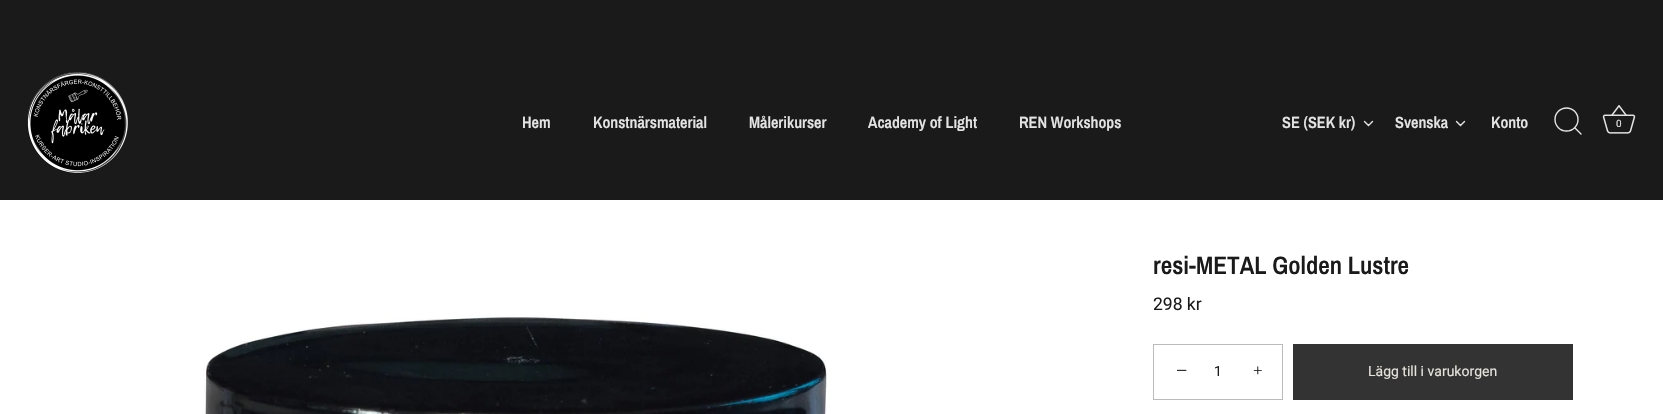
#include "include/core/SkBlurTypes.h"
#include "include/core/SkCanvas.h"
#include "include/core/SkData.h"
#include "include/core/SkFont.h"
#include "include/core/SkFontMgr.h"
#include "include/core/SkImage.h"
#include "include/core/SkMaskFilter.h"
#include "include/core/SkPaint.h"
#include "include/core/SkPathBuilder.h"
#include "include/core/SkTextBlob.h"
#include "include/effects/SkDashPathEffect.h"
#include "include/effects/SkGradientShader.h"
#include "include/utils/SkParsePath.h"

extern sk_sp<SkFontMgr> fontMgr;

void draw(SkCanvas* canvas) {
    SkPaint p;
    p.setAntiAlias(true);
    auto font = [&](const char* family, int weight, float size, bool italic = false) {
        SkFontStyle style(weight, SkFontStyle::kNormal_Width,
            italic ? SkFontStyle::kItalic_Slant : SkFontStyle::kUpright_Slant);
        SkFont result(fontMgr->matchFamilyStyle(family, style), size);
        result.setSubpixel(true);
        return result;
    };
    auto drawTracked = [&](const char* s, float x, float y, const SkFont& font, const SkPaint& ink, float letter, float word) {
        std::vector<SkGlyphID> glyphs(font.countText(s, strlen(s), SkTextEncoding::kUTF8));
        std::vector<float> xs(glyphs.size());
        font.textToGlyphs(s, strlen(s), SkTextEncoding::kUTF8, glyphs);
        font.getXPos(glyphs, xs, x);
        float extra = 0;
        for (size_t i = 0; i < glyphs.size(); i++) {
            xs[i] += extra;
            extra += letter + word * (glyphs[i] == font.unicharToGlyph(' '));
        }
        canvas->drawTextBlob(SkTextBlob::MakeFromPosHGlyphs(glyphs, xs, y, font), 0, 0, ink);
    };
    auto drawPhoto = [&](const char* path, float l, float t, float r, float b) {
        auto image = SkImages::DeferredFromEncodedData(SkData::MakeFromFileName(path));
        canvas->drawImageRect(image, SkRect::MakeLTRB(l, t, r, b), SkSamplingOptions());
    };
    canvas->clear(0xFFFFFFFF);
    p.setColor(0xFF1A1A1A);
    canvas->drawRect(SkRect::MakeLTRB(0, 0, 1663, 200), p);
    drawPhoto("media/1.png", 27, 72, 128, 174);
    auto font1 = font("Archivo Narrow", 600, 16.25f);
    p.setColor(0xFFE4E4E4);
    {
        const struct { const char* s; float x, y; } items[] = {
            {"Hem", 522, 128},
            {"Konstnärsmaterial", 593, 128},
            {"Målerikurser", 749, 128},
            {"Academy of Light", 868, 128},
            {"REN Workshops", 1019, 128},
            {"SE (SEK kr)", 1282, 128},
        };
        for (auto [s, x, y] : items) {
            canvas->drawString(s, x, y, font1, p);
        }
    }
    p.setStyle(SkPaint::kStroke_Style);
    p.setStrokeWidth(1.4f);
    p.setStrokeCap(SkPaint::kRound_Cap);
    canvas->drawPath(SkPathBuilder().moveTo(1364.5f, 121.5f).lineTo(1368.5f, 125.5f).lineTo(1372.5f, 121.5f).detach(), p);
    p.setStyle(SkPaint::kFill_Style);
    canvas->drawString("Svenska", 1395, 128, font1, p);
    p.setStyle(SkPaint::kStroke_Style);
    canvas->drawPath(SkPathBuilder().moveTo(1456.5f, 121.5f).lineTo(1460.5f, 125.5f).lineTo(1464.5f, 121.5f).detach(), p);
    p.setStyle(SkPaint::kFill_Style);
    canvas->drawString("Konto", 1491, 128, font1, p);
    p.setStyle(SkPaint::kStroke_Style);
    p.setStrokeCap(SkPaint::kButt_Cap);
    canvas->drawCircle(1566.5f, 119.5f, 11.5f, p);
    p.setStrokeCap(SkPaint::kRound_Cap);
    p.setStrokeJoin(SkPaint::kRound_Join);
    canvas->drawPath(SkPathBuilder().moveTo(1581, 134).lineTo(1575, 128).detach(), p);
    drawPhoto("media/2.png", 1602, 105, 1636, 134);
    auto font2 = font("Roboto", 400, 10);
    p.setStyle(SkPaint::kFill_Style);
    canvas->drawString("0", 1616, 127, font2, p);
    drawPhoto("media/3.png", 203, 315, 827, 414);
    auto font3 = font("Archivo Narrow", 600, 25.25f);
    p.setColor(0xFF1A1A1A);
    canvas->drawString("resi-METAL Golden Lustre", 1153, 274, font3, p);
    auto font4 = font("Roboto", 400, 17.5f);
    canvas->drawString("298 kr", 1153, 310, font4, p);
    p.setStyle(SkPaint::kStroke_Style);
    p.setStrokeWidth(1);
    p.setStrokeCap(SkPaint::kButt_Cap);
    p.setStrokeJoin(SkPaint::kMiter_Join);
    p.setColor(0xFFBBBBBB);
    canvas->drawRect(SkRect::MakeLTRB(1153.5f, 344.5f, 1282.5f, 399.5f), p);
    auto font5 = font("Liberation Serif", 400, 20);
    p.setStyle(SkPaint::kFill_Style);
    p.setColor(0xFF1A1A1A);
    canvas->drawString("−", 1176, 377, font5, p);
    auto font6 = font("Roboto", 400, 14);
    drawTracked("1", 1214, 376, font6, p, 1, 0);
    auto font7 = font("Liberation Serif", 400, 17);
    canvas->drawString("+", 1253, 376, font7, p);
    p.setColor(0xFF333333);
    canvas->drawRect(SkRect::MakeLTRB(1293, 344, 1573, 400), p);
    p.setColor(0xFFE5E3DA);
    canvas->drawString("Lägg till i varukorgen", 1368, 376, font6, p);
}
